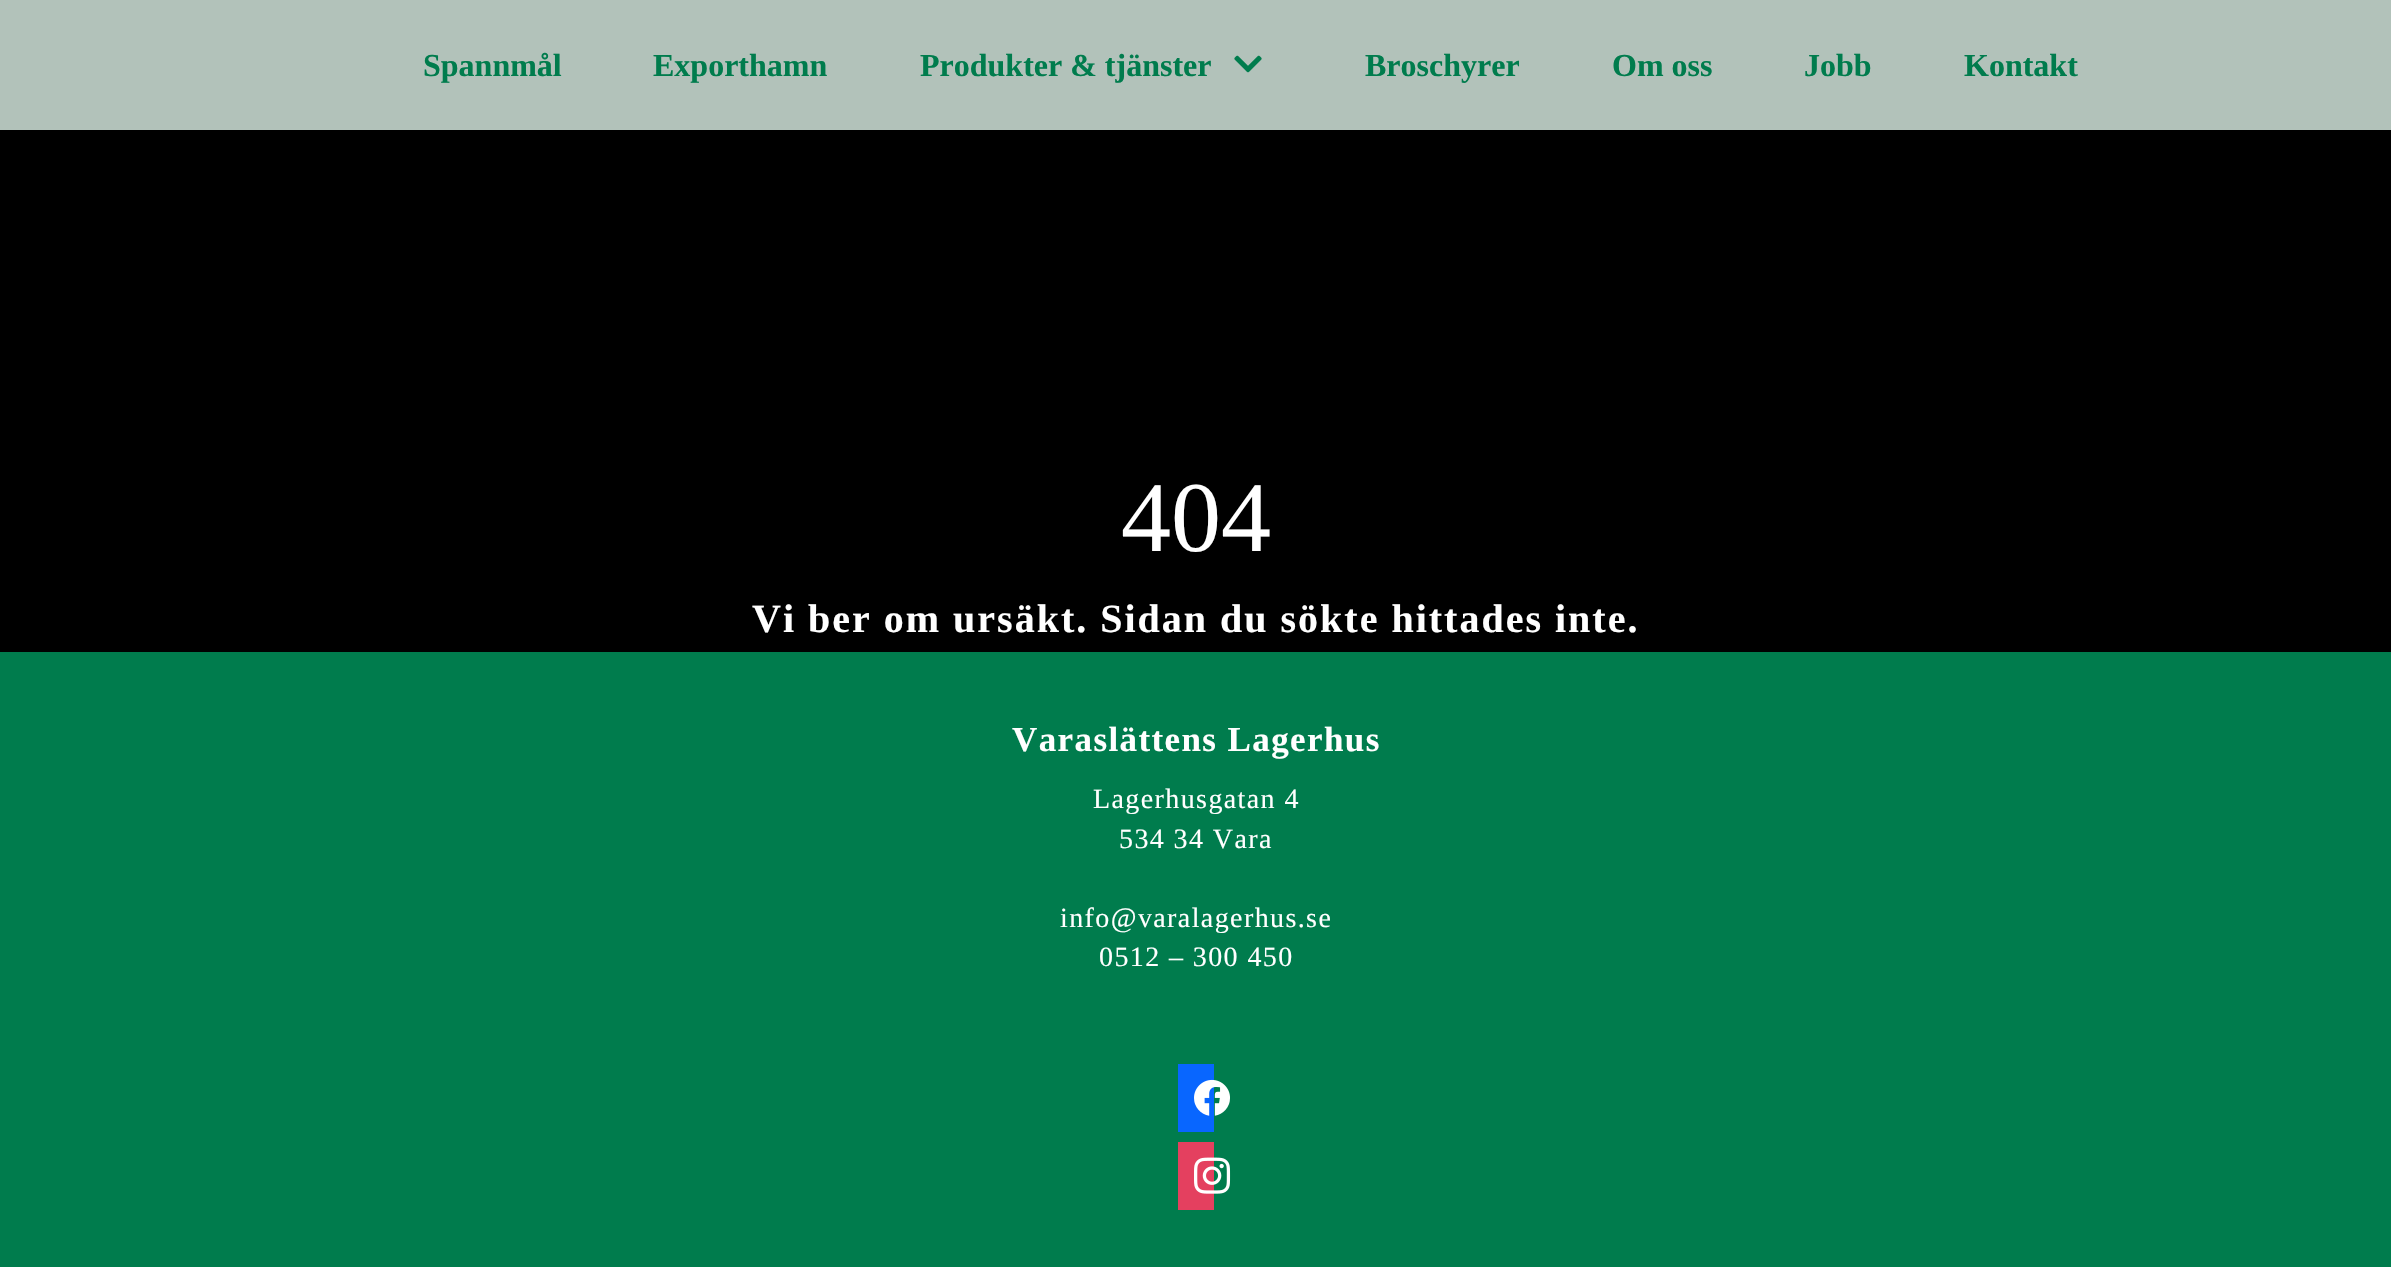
#include "include/core/SkBlurTypes.h"
#include "include/core/SkCanvas.h"
#include "include/core/SkData.h"
#include "include/core/SkFont.h"
#include "include/core/SkFontMgr.h"
#include "include/core/SkImage.h"
#include "include/core/SkMaskFilter.h"
#include "include/core/SkPaint.h"
#include "include/core/SkPathBuilder.h"
#include "include/core/SkTextBlob.h"
#include "include/effects/SkDashPathEffect.h"
#include "include/effects/SkGradientShader.h"
#include "include/utils/SkParsePath.h"

extern sk_sp<SkFontMgr> fontMgr;

void draw(SkCanvas* canvas) {
    SkPaint p;
    p.setAntiAlias(true);
    auto font = [&](const char* family, int weight, float size, bool italic = false) {
        SkFontStyle style(weight, SkFontStyle::kNormal_Width,
            italic ? SkFontStyle::kItalic_Slant : SkFontStyle::kUpright_Slant);
        SkFont result(fontMgr->matchFamilyStyle(family, style), size);
        result.setSubpixel(true);
        return result;
    };
    auto drawTracked = [&](const char* s, float x, float y, const SkFont& font, const SkPaint& ink, float letter, float word) {
        std::vector<SkGlyphID> glyphs(font.countText(s, strlen(s), SkTextEncoding::kUTF8));
        std::vector<float> xs(glyphs.size());
        font.textToGlyphs(s, strlen(s), SkTextEncoding::kUTF8, glyphs);
        font.getXPos(glyphs, xs, x);
        float extra = 0;
        for (size_t i = 0; i < glyphs.size(); i++) {
            xs[i] += extra;
            extra += letter + word * (glyphs[i] == font.unicharToGlyph(' '));
        }
        canvas->drawTextBlob(SkTextBlob::MakeFromPosHGlyphs(glyphs, xs, y, font), 0, 0, ink);
    };
    auto drawPhoto = [&](const char* path, float l, float t, float r, float b) {
        auto image = SkImages::DeferredFromEncodedData(SkData::MakeFromFileName(path));
        canvas->drawImageRect(image, SkRect::MakeLTRB(l, t, r, b), SkSamplingOptions());
    };
    canvas->clear(0xFF000000);
    p.setColor(0xFFB2C2BA);
    canvas->drawRect(SkRect::MakeLTRB(0, 0, 2391, 130), p);
    auto font1 = font("Liberation Serif", 700, 32);
    p.setColor(0xFF007C4D);
    {
        const struct { const char* s; float x, y; } items[] = {
            {"Spannmål", 423, 76},
            {"Exporthamn", 653, 76},
            {"Produkter & tjänster", 920, 76},
        };
        for (auto [s, x, y] : items) {
            canvas->drawString(s, x, y, font1, p);
        }
    }
    drawPhoto("media/1.png", 1234, 55, 1262, 73);
    {
        const struct { const char* s; float x, y; } items[] = {
            {"Broschyrer", 1365, 76},
            {"Om oss", 1612, 76},
            {"Jobb", 1804, 76},
            {"Kontakt", 1964, 76},
        };
        for (auto [s, x, y] : items) {
            canvas->drawString(s, x, y, font1, p);
        }
    }
    auto font2 = font("Liberation Serif", 400, 100);
    p.setColor(0xFFFFFFFF);
    canvas->drawString("404", 1121, 551, font2, p);
    auto font3 = font("Liberation Serif", 700, 40);
    drawTracked("Vi ber om ursäkt. Sidan du sökte hittades inte.", 752, 632, font3, p, 2, 0);
    p.setColor(0xFF007C4D);
    canvas->drawRect(SkRect::MakeLTRB(0, 652, 2391, 1267), p);
    auto font4 = font("Liberation Serif", 700, 35);
    p.setColor(0xFFFFFFFF);
    drawTracked("Varaslättens Lagerhus", 1012, 751, font4, p, 1.4f, 0);
    auto font5 = font("Liberation Serif", 400, 28);
    {
        const struct { const char* s; float x, y; } items[] = {
            {"Lagerhusgatan 4", 1093, 808},
            {"534 34 Vara", 1119, 848},
            {"info@varalagerhus.se", 1060, 927},
            {"0512 – 300 450", 1099, 966},
        };
        for (auto [s, x, y] : items) {
            drawTracked(s, x, y, font5, p, 1.4f, 0);
        }
    }
    p.setColor(0xFF0866FF);
    canvas->drawRect(SkRect::MakeLTRB(1178, 1064, 1214, 1132), p);
    drawPhoto("media/2.png", 1194, 1079, 1230, 1116);
    p.setColor(0xFFE4405F);
    canvas->drawRect(SkRect::MakeLTRB(1178, 1142, 1214, 1210), p);
    drawPhoto("media/3.png", 1194, 1157, 1231, 1194);
}
